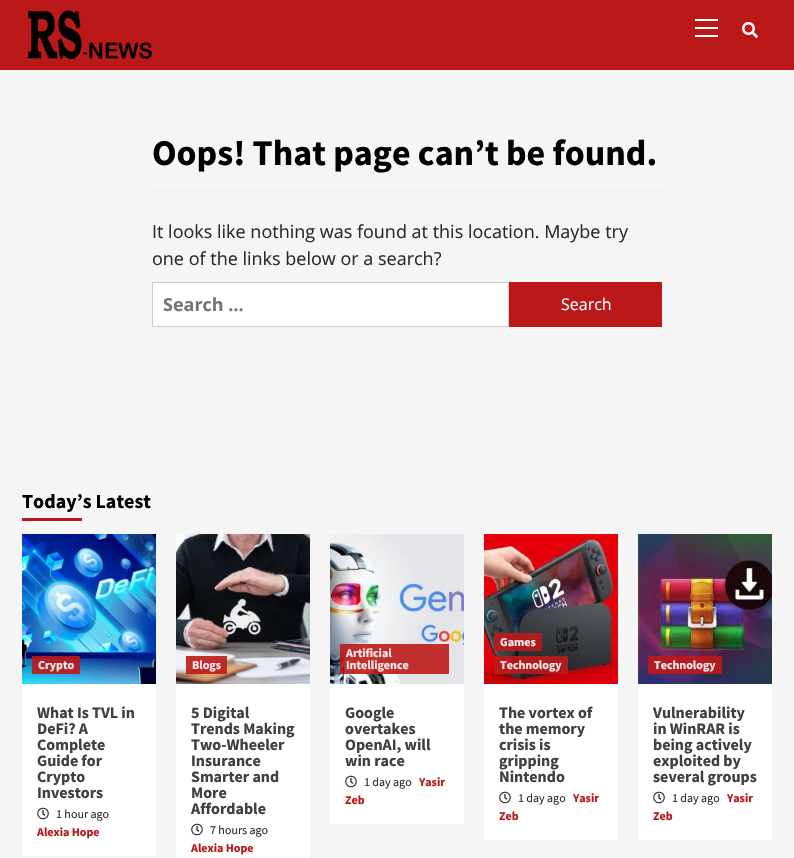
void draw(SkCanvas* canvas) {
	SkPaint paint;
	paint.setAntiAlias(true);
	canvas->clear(0xfff5f5f5);
	paint.setColor(0xffbb1919);
	canvas->drawRect(SkRect::MakeXYWH(0, 0, 794, 70), paint);
	canvas->drawImageRect(SkImages::DeferredFromEncodedData(SkData::MakeFromFileName("img1.png")), SkRect::MakeXYWH(28, 10, 124, 49), SkSamplingOptions());
	paint.setColor(0xffffffff);
	canvas->drawRect(SkRect::MakeXYWH(695, 27, 23, 2), paint);
	canvas->drawRect(SkRect::MakeXYWH(695, 19, 23, 2), paint);
	canvas->drawRect(SkRect::MakeXYWH(695, 35, 23, 2), paint);
	canvas->drawImageRect(SkImages::DeferredFromEncodedData(SkData::MakeFromFileName("img2.png")), SkRect::MakeXYWH(742, 22, 16, 16), SkSamplingOptions());
	paint.setColor(0xffeeeeee);
	canvas->drawRect(SkRect::MakeXYWH(152, 190, 511, 1), paint);
	SkFont f1(fontMgr->matchFamilyStyle("Source Sans Pro", SkFontStyle::Bold()), 36);
	f1.setSubpixel(true);
	paint.setColor(0xff000000);
	canvas->drawString("Oops! That page can’t be found.", 152, 165, f1, paint);
	SkFont f2(fontMgr->matchFamilyStyle("Open Sans", SkFontStyle::Normal()), 18);
	f2.setSubpixel(true);
	paint.setColor(0xff2a2a2a);
	canvas->drawString("It looks like nothing was found at this location. Maybe try", 152, 238, f2, paint);
	canvas->drawString("one of the links below or a search?", 152, 265, f2, paint);
	paint.setColor(0xffffffff);
	canvas->drawRect(SkRect::MakeXYWH(152.5, 282.5, 356, 44), paint);
	paint.setStroke(true);
	paint.setStrokeWidth(1);
	paint.setColor(0xffcccccc);
	canvas->drawRect(SkRect::MakeXYWH(152.5, 282.5, 356, 44), paint);
	SkFont f3(fontMgr->matchFamilyStyle("Open Sans", SkFontStyle::Bold()), 18);
	f3.setSubpixel(true);
	paint.setStroke(false);
	paint.setColor(0xff757575);
	canvas->drawString("Search …", 163, 311, f3, paint);
	paint.setColor(0xffbb1919);
	canvas->drawRect(SkRect::MakeXYWH(509, 282, 153, 45), paint);
	SkFont f4(fontMgr->matchFamilyStyle("Open Sans", SkFontStyle::Normal()), 16);
	f4.setSubpixel(true);
	paint.setColor(0xffffffff);
	canvas->drawString("Search", 561, 310, f4, paint);
	SkFont f5(fontMgr->matchFamilyStyle("Source Sans Pro", SkFontStyle::Bold()), 20);
	f5.setSubpixel(true);
	paint.setColor(0xff000000);
	canvas->drawString("Today’s Latest", 22, 508, f5, paint);
	paint.setColor(0xffbb1919);
	canvas->drawRect(SkRect::MakeXYWH(22, 518, 60, 3), paint);
	paint.setColor(0xffffffff);
	canvas->drawRect(SkRect::MakeXYWH(22, 684, 134, 172), paint);
	canvas->drawImageRect(SkImages::DeferredFromEncodedData(SkData::MakeFromFileName("img3.png")), SkRect::MakeXYWH(22, 534, 134, 150), SkSamplingOptions());
	paint.setColor(0xe6bb1919);
	canvas->drawRect(SkRect::MakeXYWH(32, 656, 48, 18), paint);
	SkFont f6(fontMgr->matchFamilyStyle("Source Sans Pro", SkFontStyle::Bold()), 12);
	f6.setSubpixel(true);
	paint.setColor(0xfff7e9ea);
	canvas->drawString("Crypto", 38, 669, f6, paint);
	SkFont f7(fontMgr->matchFamilyStyle("Source Sans Pro", SkFontStyle::Bold()), 16);
	f7.setSubpixel(true);
	paint.setColor(0xff404040);
	canvas->drawString("What Is TVL in", 37, 718, f7, paint);
	canvas->drawString("DeFi? A", 37, 734, f7, paint);
	canvas->drawString("Complete", 37, 750, f7, paint);
	canvas->drawString("Guide for", 37, 766, f7, paint);
	canvas->drawString("Crypto", 37, 782, f7, paint);
	canvas->drawString("Investors", 37, 798, f7, paint);
	canvas->drawImageRect(SkImages::DeferredFromEncodedData(SkData::MakeFromFileName("img4.png")), SkRect::MakeXYWH(37, 807, 12, 13), SkSamplingOptions());
	SkFont f8(fontMgr->matchFamilyStyle("Source Sans Pro", SkFontStyle::Normal()), 12);
	f8.setSubpixel(true);
	paint.setColor(0xff2a2a2a);
	canvas->drawString("1 hour ago", 56, 818, f8, paint);
	paint.setColor(0xffbb1919);
	canvas->drawString("Alexia Hope", 37, 836, f6, paint);
	paint.setColor(0xffffffff);
	canvas->drawRect(SkRect::MakeXYWH(176, 684, 134, 174), paint);
	canvas->drawImageRect(SkImages::DeferredFromEncodedData(SkData::MakeFromFileName("img5.png")), SkRect::MakeXYWH(176, 534, 134, 150), SkSamplingOptions());
	paint.setColor(0xe6bb1919);
	canvas->drawRect(SkRect::MakeXYWH(186, 656, 41, 18), paint);
	paint.setColor(0xfff7e9ea);
	canvas->drawString("Blogs", 192, 669, f6, paint);
	paint.setColor(0xff404040);
	canvas->drawString("5 Digital", 191, 718, f7, paint);
	canvas->drawString("Trends Making", 191, 734, f7, paint);
	canvas->drawString("Two-Wheeler", 191, 750, f7, paint);
	canvas->drawString("Insurance", 191, 766, f7, paint);
	canvas->drawString("Smarter and", 191, 782, f7, paint);
	canvas->drawString("More", 191, 798, f7, paint);
	canvas->drawString("Affordable", 191, 814, f7, paint);
	canvas->drawImageRect(SkImages::DeferredFromEncodedData(SkData::MakeFromFileName("img4.png")), SkRect::MakeXYWH(191, 823, 12, 13), SkSamplingOptions());
	paint.setColor(0xff2a2a2a);
	canvas->drawString("7 hours ago", 210, 834, f8, paint);
	paint.setColor(0xffbb1919);
	canvas->drawString("Alexia Hope", 191, 852, f6, paint);
	paint.setColor(0xffffffff);
	canvas->drawRect(SkRect::MakeXYWH(330, 684, 134, 140), paint);
	canvas->drawImageRect(SkImages::DeferredFromEncodedData(SkData::MakeFromFileName("img6.png")), SkRect::MakeXYWH(330, 534, 134, 150), SkSamplingOptions());
	paint.setColor(0xe6bb1919);
	canvas->drawRect(SkRect::MakeXYWH(340, 644, 109, 30), paint);
	paint.setColor(0xfff7e9ea);
	canvas->drawString("Artificial", 346, 657, f6, paint);
	canvas->drawString("Intelligence", 346, 669, f6, paint);
	paint.setColor(0xff404040);
	canvas->drawString("Google", 345, 718, f7, paint);
	canvas->drawString("overtakes", 345, 734, f7, paint);
	canvas->drawString("OpenAI, will", 345, 750, f7, paint);
	canvas->drawString("win race", 345, 766, f7, paint);
	canvas->drawImageRect(SkImages::DeferredFromEncodedData(SkData::MakeFromFileName("img4.png")), SkRect::MakeXYWH(345, 775, 12, 13), SkSamplingOptions());
	paint.setColor(0xff2a2a2a);
	canvas->drawString("1 day ago", 364, 786, f8, paint);
	paint.setColor(0xffbb1919);
	canvas->drawString("Yasir", 419, 786, f6, paint);
	canvas->drawString("Zeb", 345, 804, f6, paint);
	paint.setColor(0xffffffff);
	canvas->drawRect(SkRect::MakeXYWH(484, 684, 134, 156), paint);
	canvas->drawImageRect(SkImages::DeferredFromEncodedData(SkData::MakeFromFileName("img7.png")), SkRect::MakeXYWH(484, 534, 134, 150), SkSamplingOptions());
	paint.setColor(0xe6bb1919);
	canvas->drawRect(SkRect::MakeXYWH(494, 633, 48, 18), paint);
	paint.setColor(0xfff7e9ea);
	canvas->drawString("Games", 500, 646, f6, paint);
	paint.setColor(0xe6bb1919);
	canvas->drawRect(SkRect::MakeXYWH(494, 656, 74, 18), paint);
	paint.setColor(0xfff7e9ea);
	canvas->drawString("Technology", 500, 669, f6, paint);
	paint.setColor(0xff404040);
	canvas->drawString("The vortex of", 499, 718, f7, paint);
	canvas->drawString("the memory", 499, 734, f7, paint);
	canvas->drawString("crisis is", 499, 750, f7, paint);
	canvas->drawString("gripping", 499, 766, f7, paint);
	canvas->drawString("Nintendo", 499, 782, f7, paint);
	canvas->drawImageRect(SkImages::DeferredFromEncodedData(SkData::MakeFromFileName("img4.png")), SkRect::MakeXYWH(499, 791, 12, 13), SkSamplingOptions());
	paint.setColor(0xff2a2a2a);
	canvas->drawString("1 day ago", 518, 802, f8, paint);
	paint.setColor(0xffbb1919);
	canvas->drawString("Yasir", 573, 802, f6, paint);
	canvas->drawString("Zeb", 499, 820, f6, paint);
	paint.setColor(0xffffffff);
	canvas->drawRect(SkRect::MakeXYWH(638, 684, 134, 156), paint);
	canvas->drawImageRect(SkImages::DeferredFromEncodedData(SkData::MakeFromFileName("img8.png")), SkRect::MakeXYWH(638, 534, 134, 150), SkSamplingOptions());
	paint.setColor(0xe6bb1919);
	canvas->drawRect(SkRect::MakeXYWH(648, 656, 74, 18), paint);
	paint.setColor(0xfff7e9ea);
	canvas->drawString("Technology", 654, 669, f6, paint);
	paint.setColor(0xff404040);
	canvas->drawString("Vulnerability", 653, 718, f7, paint);
	canvas->drawString("in WinRAR is", 653, 734, f7, paint);
	canvas->drawString("being actively", 653, 750, f7, paint);
	canvas->drawString("exploited by", 653, 766, f7, paint);
	canvas->drawString("several groups", 653, 782, f7, paint);
	canvas->drawImageRect(SkImages::DeferredFromEncodedData(SkData::MakeFromFileName("img4.png")), SkRect::MakeXYWH(653, 791, 12, 13), SkSamplingOptions());
	paint.setColor(0xff2a2a2a);
	canvas->drawString("1 day ago", 672, 802, f8, paint);
	paint.setColor(0xffbb1919);
	canvas->drawString("Yasir", 727, 802, f6, paint);
	canvas->drawString("Zeb", 653, 820, f6, paint);
}
